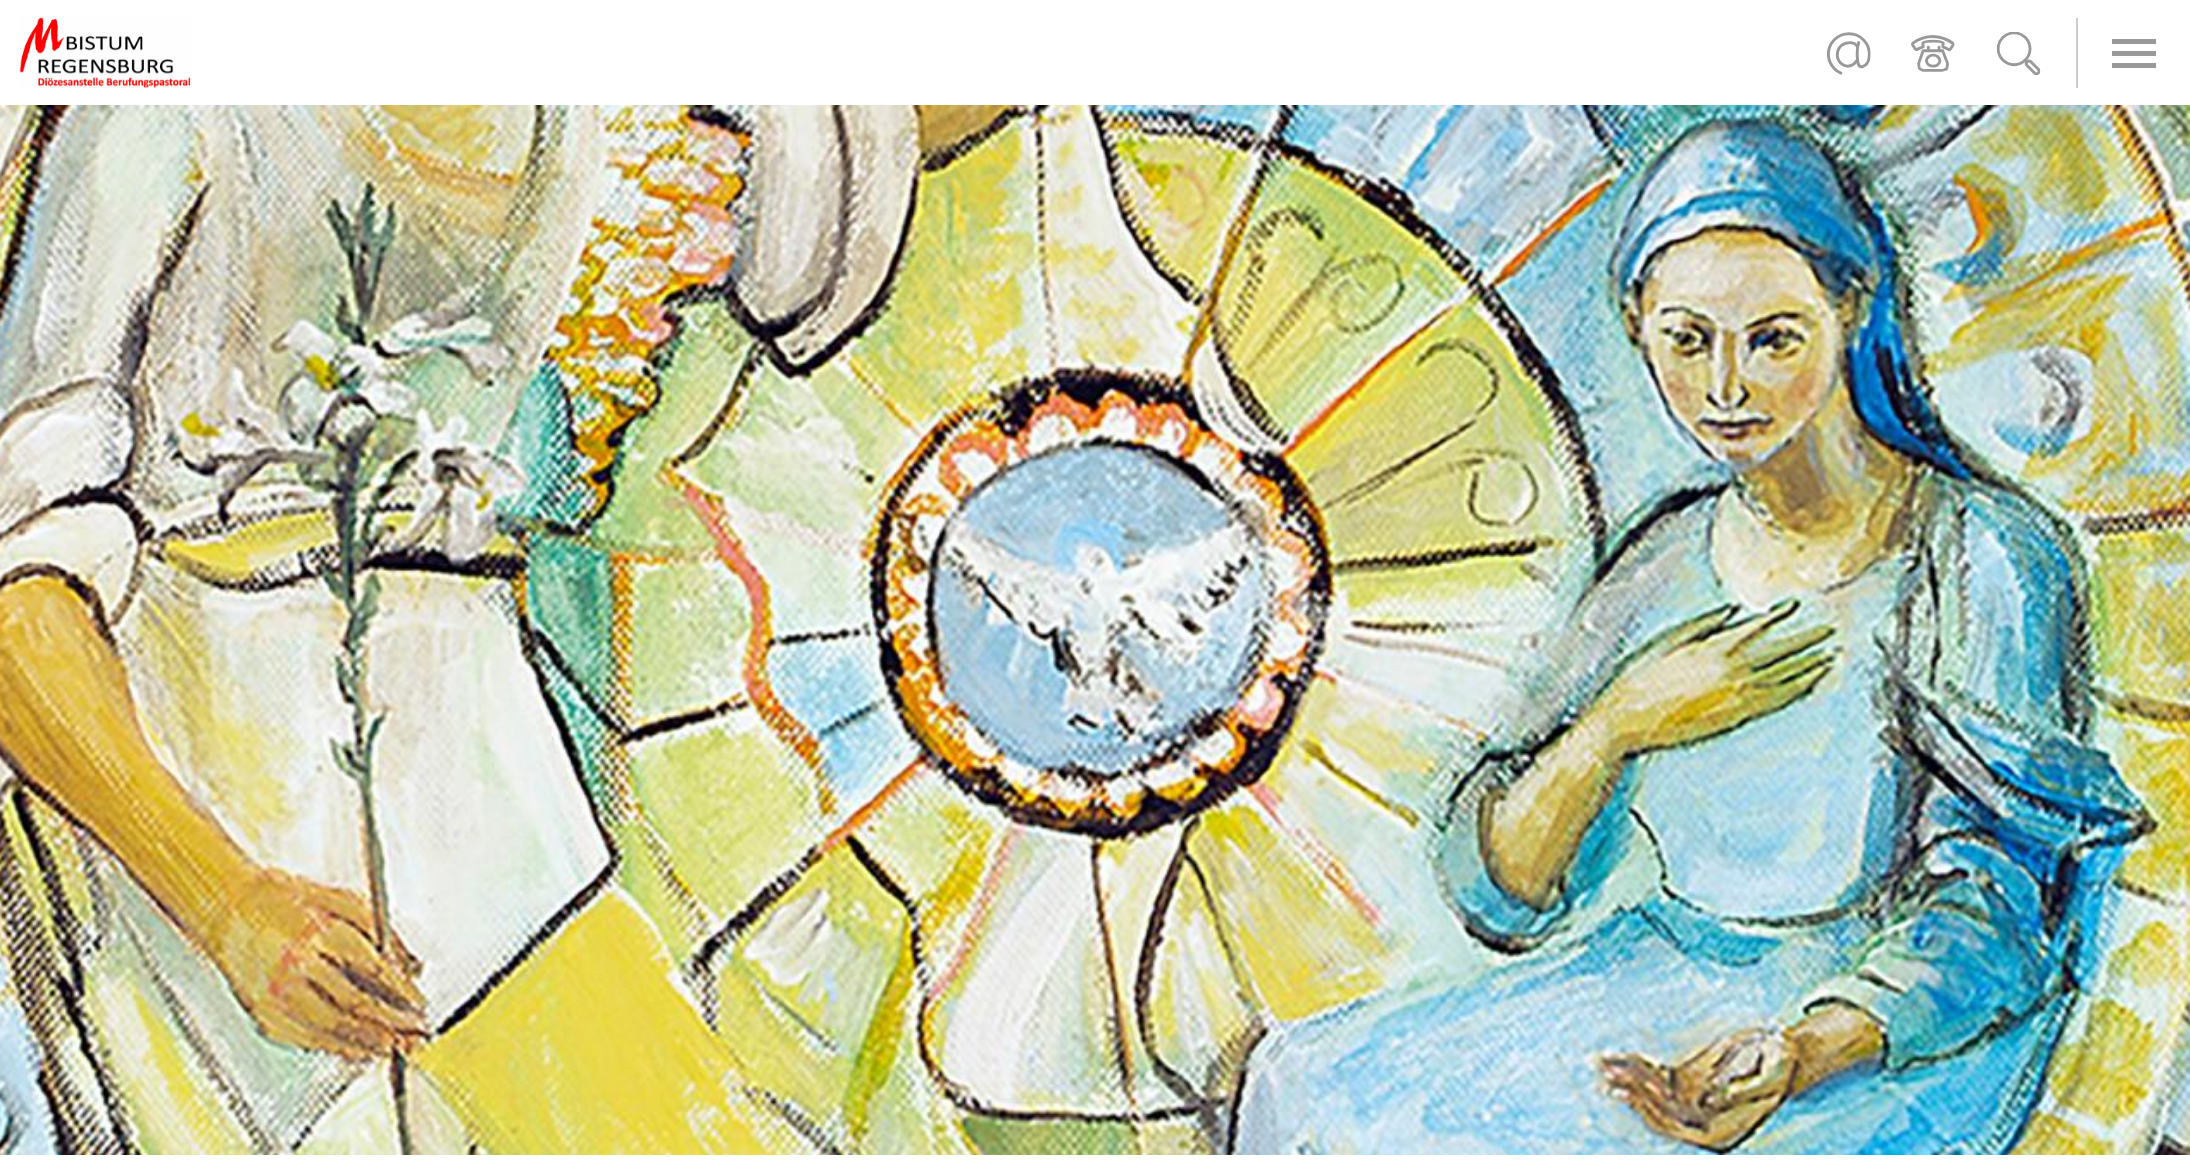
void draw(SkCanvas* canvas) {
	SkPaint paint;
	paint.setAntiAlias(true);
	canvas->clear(0xffffffff);
	canvas->drawImageRect(SkImages::DeferredFromEncodedData(SkData::MakeFromFileName("img1.png")), SkRect::MakeXYWH(19, 17, 172, 71), SkSamplingOptions());
	paint.setColor(0xffcccccc);
	canvas->drawRect(SkRect::MakeXYWH(2076, 18, 2, 70), paint);
	canvas->drawImageRect(SkImages::DeferredFromEncodedData(SkData::MakeFromFileName("img2.png")), SkRect::MakeXYWH(1827, 32, 44, 43), SkSamplingOptions());
	canvas->drawImageRect(SkImages::DeferredFromEncodedData(SkData::MakeFromFileName("img3.png")), SkRect::MakeXYWH(1911, 35, 44, 37), SkSamplingOptions());
	canvas->drawImageRect(SkImages::DeferredFromEncodedData(SkData::MakeFromFileName("img4.png")), SkRect::MakeXYWH(1997, 32, 44, 43), SkSamplingOptions());
	paint.setColor(0xff999999);
	canvas->drawRect(SkRect::MakeXYWH(2112, 39, 44, 5), paint);
	canvas->drawRect(SkRect::MakeXYWH(2112, 51, 44, 5), paint);
	canvas->drawRect(SkRect::MakeXYWH(2112, 63, 44, 5), paint);
	canvas->drawImageRect(SkImages::DeferredFromEncodedData(SkData::MakeFromFileName("img5.png")), SkRect::MakeXYWH(0, 105, 2190, 1050), SkSamplingOptions());
}
